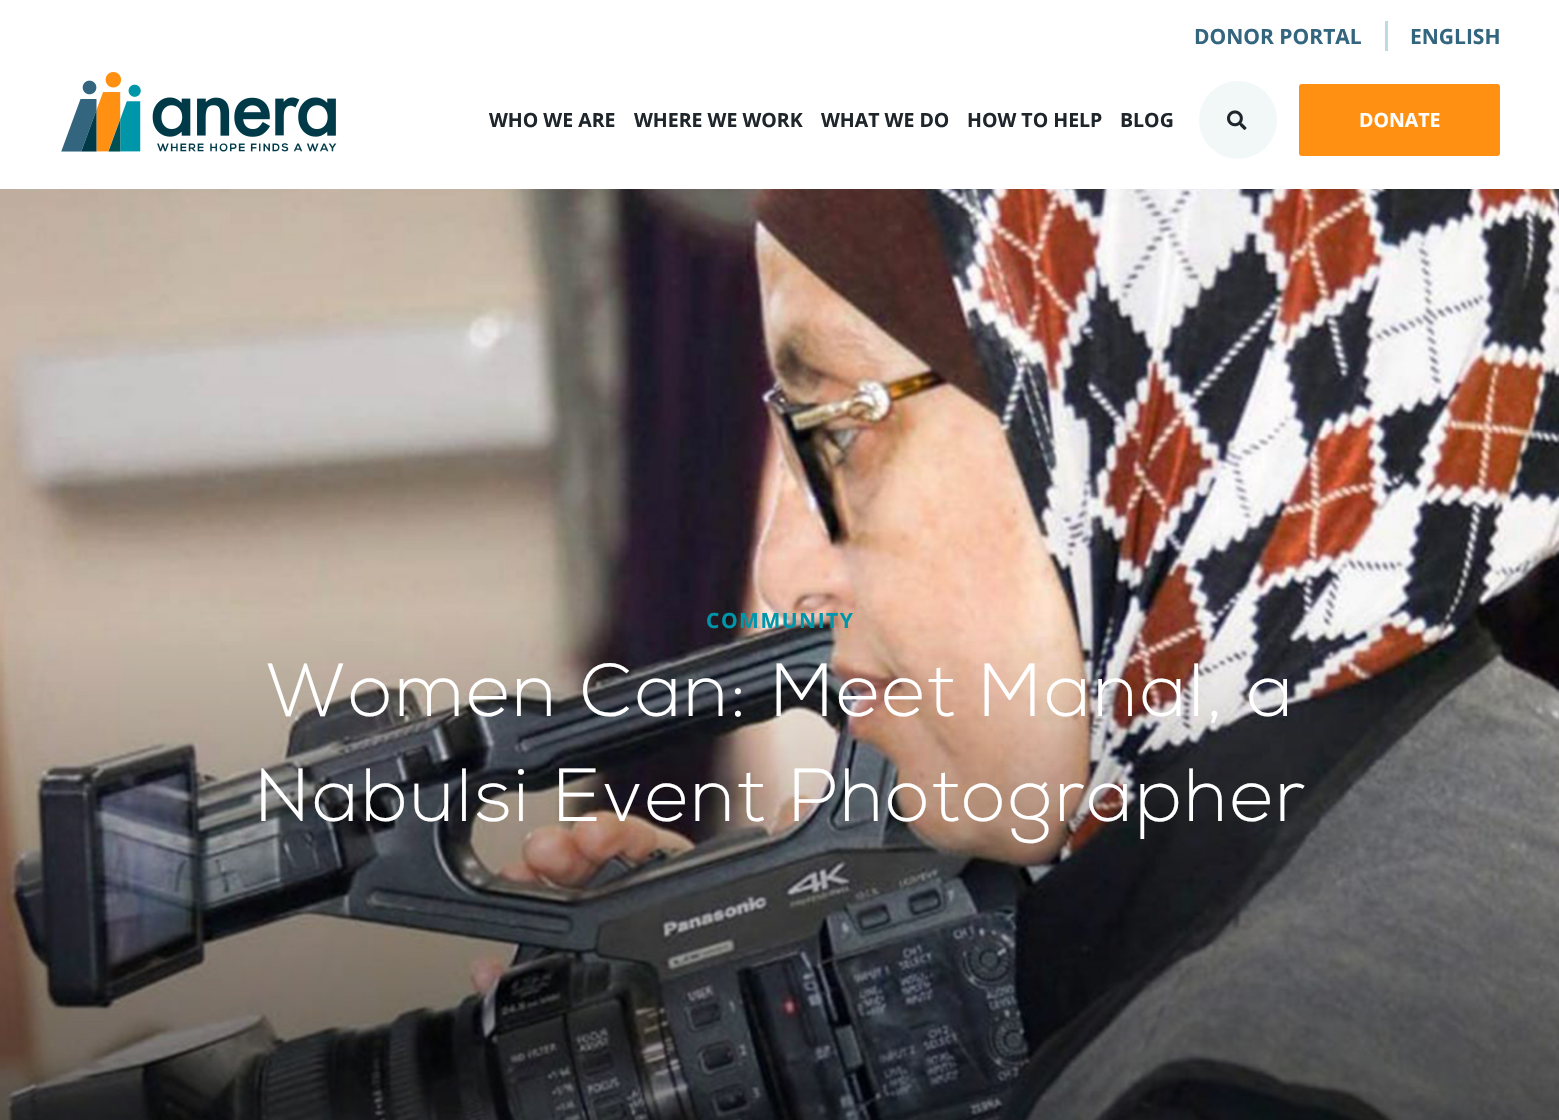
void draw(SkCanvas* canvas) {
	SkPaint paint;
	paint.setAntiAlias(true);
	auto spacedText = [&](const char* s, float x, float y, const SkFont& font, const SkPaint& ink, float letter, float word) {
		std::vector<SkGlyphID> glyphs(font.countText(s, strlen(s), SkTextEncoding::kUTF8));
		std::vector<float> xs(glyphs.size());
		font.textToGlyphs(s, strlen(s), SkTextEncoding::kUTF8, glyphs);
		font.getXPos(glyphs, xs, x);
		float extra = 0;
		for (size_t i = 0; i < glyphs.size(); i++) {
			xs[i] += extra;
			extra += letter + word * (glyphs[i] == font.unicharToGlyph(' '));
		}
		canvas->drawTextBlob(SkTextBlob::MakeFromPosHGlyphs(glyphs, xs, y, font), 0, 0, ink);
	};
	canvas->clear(0xffffffff);
	paint.setColor(0xffbcdbe4);
	canvas->drawRect(SkRect::MakeXYWH(1385, 21, 3, 30), paint);
	SkFont f1(fontMgr->matchFamilyStyle("Open Sans", SkFontStyle::Bold()), 21);
	f1.setSubpixel(true);
	paint.setColor(0xff34657f);
	canvas->drawString("DONOR PORTAL", 1194, 44, f1, paint);
	canvas->drawString("ENGLISH", 1410, 44, f1, paint);
	canvas->drawImageRect(SkImages::DeferredFromEncodedData(SkData::MakeFromFileName("img1.png")), SkRect::MakeXYWH(61, 72, 276, 80), SkSamplingOptions());
	SkFont f2(fontMgr->matchFamilyStyle("Open Sans", SkFontStyle::Bold()), 19.5);
	f2.setSubpixel(true);
	paint.setColor(0xff1e252b);
	canvas->drawString("WHO WE ARE", 489, 127, f2, paint);
	canvas->drawString("WHERE WE WORK", 634, 127, f2, paint);
	canvas->drawString("WHAT WE DO", 821, 127, f2, paint);
	canvas->drawString("HOW TO HELP", 967, 127, f2, paint);
	canvas->drawString("BLOG", 1120, 127, f2, paint);
	paint.setColor(0xfff2f8f8);
	canvas->drawCircle(1238, 120, 39, paint);
	canvas->drawImageRect(SkImages::DeferredFromEncodedData(SkData::MakeFromFileName("img2.png")), SkRect::MakeXYWH(1227, 110, 20, 20), SkSamplingOptions());
	paint.setColor(0xffff9012);
	canvas->drawRoundRect(SkRect::MakeXYWH(1299, 84, 201, 72), 3, 3, paint);
	paint.setColor(0xffffffff);
	canvas->drawString("DONATE", 1359, 127, f2, paint);
	canvas->drawImageRect(SkImages::DeferredFromEncodedData(SkData::MakeFromFileName("img3.png")), SkRect::MakeXYWH(0, 189, 1559, 931), SkSamplingOptions());
	paint.setColor(0xff0096aa);
	spacedText("COMMUNITY", 706, 628, f1, paint, 1.5, 0);
	SkFont f3(fontMgr->matchFamilyStyle("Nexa", SkFontStyle(300, SkFontStyle::kNormal_Width, SkFontStyle::kUpright_Slant)), 75);
	f3.setSubpixel(true);
	paint.setColor(0xffffffff);
	spacedText("Women Can: Meet Manal, a", 265, 716, f3, paint, 1.5, 0);
	spacedText("Nabulsi Event Photographer", 254, 821, f3, paint, 1.5, 0);
}
